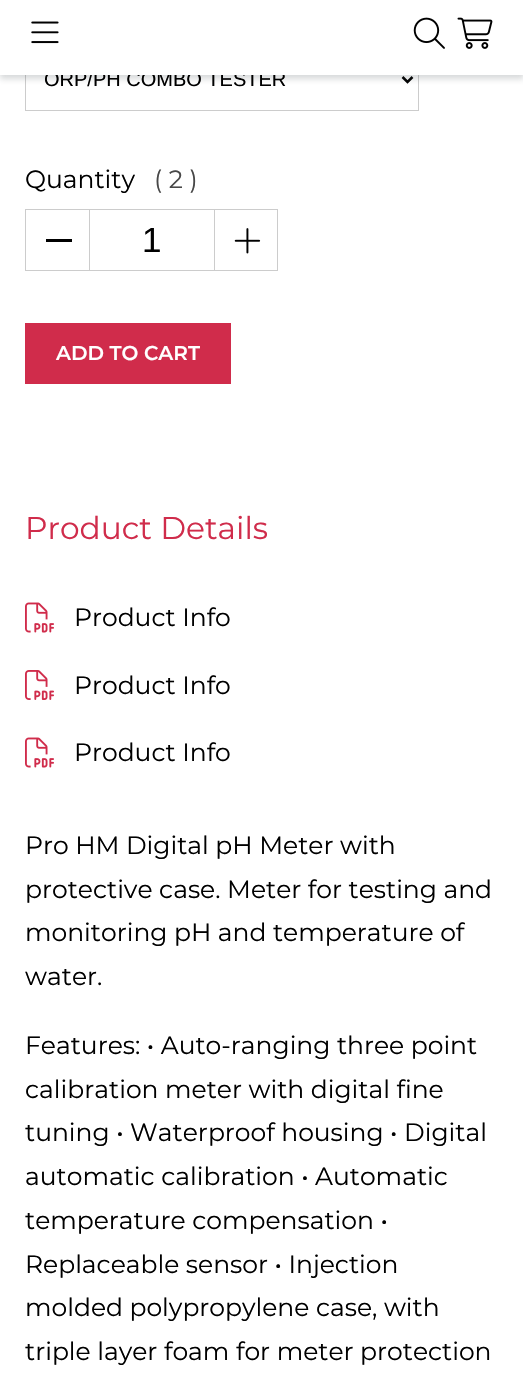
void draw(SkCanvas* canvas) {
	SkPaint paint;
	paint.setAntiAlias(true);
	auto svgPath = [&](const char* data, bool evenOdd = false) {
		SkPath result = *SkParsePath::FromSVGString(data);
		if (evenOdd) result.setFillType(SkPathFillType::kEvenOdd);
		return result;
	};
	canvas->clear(0xffffffff);
	paint.setStroke(true);
	paint.setStrokeWidth(1);
	paint.setColor(0xffcccccc);
	canvas->drawRect(SkRect::MakeXYWH(25.5, 48.5, 393, 62), paint);
	paint.setStrokeWidth(2.5);
	paint.setColor(0xff000000);
	canvas->drawPath(svgPath("M402.5 77L407.5 82L412.5 77"), paint);
	paint.setStroke(false);
	paint.setColor(0x33393f48);
	paint.setMaskFilter(SkMaskFilter::MakeBlur(kNormal_SkBlurStyle, 3));
	canvas->drawRect(SkRect::MakeXYWH(0, 4, 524, 75), paint);
	paint.setMaskFilter(nullptr);
	SkFont f1(fontMgr->matchFamilyStyle("Liberation Sans", SkFontStyle::Normal()), 20);
	f1.setSubpixel(true);
	paint.setColor(0xff000000);
	canvas->drawString("ORP/PH COMBO TESTER", 44, 86, f1, paint);
	paint.setColor(0xffffffff);
	canvas->drawRect(SkRect::MakeXYWH(0, 0, 523, 75), paint);
	canvas->drawImageRect(SkImages::DeferredFromEncodedData(SkData::MakeFromFileName("img1.png")), SkRect::MakeXYWH(31, 21, 28, 23), SkSamplingOptions());
	canvas->drawImageRect(SkImages::DeferredFromEncodedData(SkData::MakeFromFileName("img2.png")), SkRect::MakeXYWH(413, 17, 32, 32), SkSamplingOptions());
	canvas->drawImageRect(SkImages::DeferredFromEncodedData(SkData::MakeFromFileName("img3.png")), SkRect::MakeXYWH(457, 17, 36, 32), SkSamplingOptions());
	SkFont f2(fontMgr->matchFamilyStyle("Montserrat", SkFontStyle::Normal()), 25);
	f2.setSubpixel(true);
	paint.setColor(0xff000000);
	canvas->drawString("Quantity", 25, 188, f2, paint);
	paint.setColor(0xff484848);
	canvas->drawString("( 2 )", 154, 188, f2, paint);
	paint.setStroke(true);
	paint.setStrokeWidth(1);
	paint.setColor(0xffcccccc);
	canvas->drawRect(SkRect::MakeXYWH(25.5, 209.5, 252, 61), paint);
	paint.setStroke(false);
	canvas->drawRect(SkRect::MakeXYWH(89, 210, 1, 60), paint);
	paint.setColor(0xff000000);
	canvas->drawRect(SkRect::MakeXYWH(46, 239, 26, 3), paint);
	SkFont f3(fontMgr->matchFamilyStyle("Liberation Sans", SkFontStyle::Normal()), 35);
	f3.setSubpixel(true);
	canvas->drawString("1", 142, 252, f3, paint);
	paint.setColor(0xffcccccc);
	canvas->drawRect(SkRect::MakeXYWH(214, 210, 1, 60), paint);
	canvas->drawImageRect(SkImages::DeferredFromEncodedData(SkData::MakeFromFileName("img4.png")), SkRect::MakeXYWH(234, 228, 27, 26), SkSamplingOptions());
	paint.setColor(0xffd02c4b);
	canvas->drawRect(SkRect::MakeXYWH(25, 323, 206, 61), paint);
	SkFont f4(fontMgr->matchFamilyStyle("Montserrat", SkFontStyle(600, SkFontStyle::kNormal_Width, SkFontStyle::kUpright_Slant)), 20);
	f4.setSubpixel(true);
	paint.setColor(0xffffffff);
	canvas->drawString("ADD TO CART", 56, 360, f4, paint);
	SkFont f5(fontMgr->matchFamilyStyle("Montserrat", SkFontStyle::Normal()), 31.25);
	f5.setSubpixel(true);
	paint.setColor(0xffd02c4b);
	canvas->drawString("Product Details", 25, 539, f5, paint);
	canvas->drawImageRect(SkImages::DeferredFromEncodedData(SkData::MakeFromFileName("img5.png")), SkRect::MakeXYWH(25, 602, 29, 31), SkSamplingOptions());
	paint.setColor(0xff000000);
	canvas->drawString("Product Info", 74, 626, f2, paint);
	canvas->drawImageRect(SkImages::DeferredFromEncodedData(SkData::MakeFromFileName("img6.png")), SkRect::MakeXYWH(25, 670, 29, 30), SkSamplingOptions());
	canvas->drawString("Product Info", 74, 694, f2, paint);
	canvas->drawImageRect(SkImages::DeferredFromEncodedData(SkData::MakeFromFileName("img5.png")), SkRect::MakeXYWH(25, 737, 29, 31), SkSamplingOptions());
	canvas->drawString("Product Info", 74, 761, f2, paint);
	canvas->drawString("Pro HM Digital pH Meter with", 25, 854, f2, paint);
	canvas->drawString("protective case. Meter for testing and", 25, 898, f2, paint);
	canvas->drawString("monitoring pH and temperature of", 25, 941, f2, paint);
	canvas->drawString("water.", 25, 985, f2, paint);
	canvas->drawString("Features: • Auto-ranging three point", 25, 1054, f2, paint);
	canvas->drawString("calibration meter with digital fine", 25, 1098, f2, paint);
	canvas->drawString("tuning • Waterproof housing • Digital", 25, 1141, f2, paint);
	canvas->drawString("automatic calibration • Automatic", 25, 1185, f2, paint);
	canvas->drawString("temperature compensation •", 25, 1229, f2, paint);
	canvas->drawString("Replaceable sensor • Injection", 25, 1273, f2, paint);
	canvas->drawString("molded polypropylene case, with", 25, 1316, f2, paint);
	canvas->drawString("triple layer foam for meter protection", 25, 1360, f2, paint);
}
